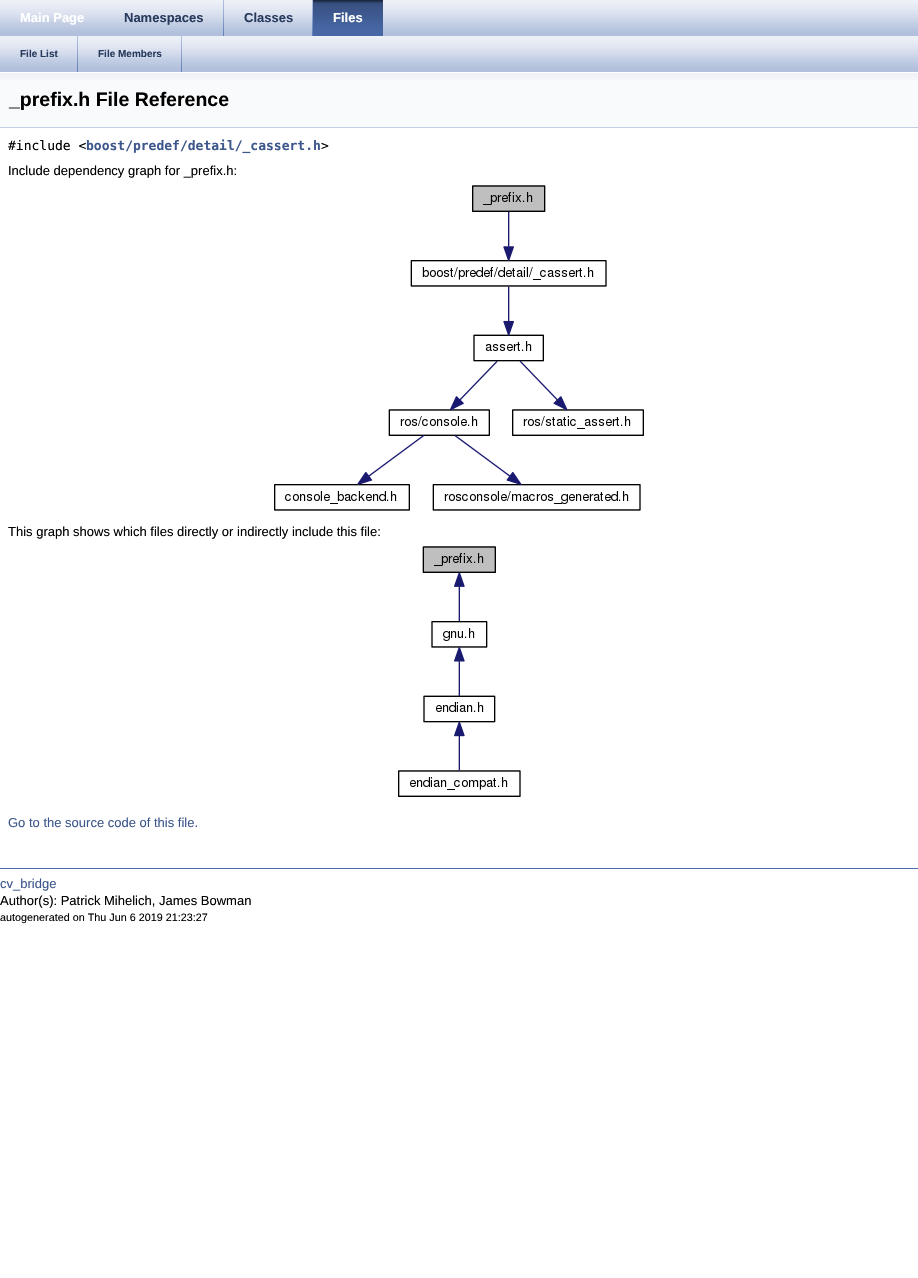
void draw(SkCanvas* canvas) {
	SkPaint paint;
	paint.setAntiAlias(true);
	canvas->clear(0xffffffff);
	canvas->drawImageRect(SkImages::DeferredFromEncodedData(SkData::MakeFromFileName("img1.png")), SkRect::MakeXYWH(0, 0, 918, 36), SkSamplingOptions());
	SkFont f1(fontMgr->matchFamilyStyle("Liberation Sans", SkFontStyle::Bold()), 13);
	f1.setSubpixel(true);
	paint.setColor(0xffffffff);
	canvas->drawString("Main Page", 20, 22, f1, paint);
	canvas->drawImageRect(SkImages::DeferredFromEncodedData(SkData::MakeFromFileName("img2.png")), SkRect::MakeXYWH(223, 0, 1, 36), SkSamplingOptions());
	paint.setColor(0xff283a5d);
	canvas->drawString("Namespaces", 124, 22, f1, paint);
	canvas->drawImageRect(SkImages::DeferredFromEncodedData(SkData::MakeFromFileName("img2.png")), SkRect::MakeXYWH(312, 0, 1, 36), SkSamplingOptions());
	canvas->drawString("Classes", 244, 22, f1, paint);
	canvas->drawImageRect(SkImages::DeferredFromEncodedData(SkData::MakeFromFileName("img3.png")), SkRect::MakeXYWH(313, 0, 70, 36), SkSamplingOptions());
	paint.setColor(0xffffffff);
	canvas->drawString("Files", 333, 22, f1, paint);
	canvas->drawImageRect(SkImages::DeferredFromEncodedData(SkData::MakeFromFileName("img1.png")), SkRect::MakeXYWH(0, 36, 918, 36), SkSamplingOptions());
	canvas->drawImageRect(SkImages::DeferredFromEncodedData(SkData::MakeFromFileName("img2.png")), SkRect::MakeXYWH(77, 36, 1, 36), SkSamplingOptions());
	SkFont f2(fontMgr->matchFamilyStyle("Liberation Sans", SkFontStyle::Bold()), 10);
	f2.setSubpixel(true);
	paint.setColor(0xff283a5d);
	canvas->drawString("File List", 20, 57, f2, paint);
	canvas->drawImageRect(SkImages::DeferredFromEncodedData(SkData::MakeFromFileName("img2.png")), SkRect::MakeXYWH(181, 36, 1, 36), SkSamplingOptions());
	canvas->drawString("File Members", 98, 57, f2, paint);
	paint.setColor(0xfff9fafc);
	canvas->drawRect(SkRect::MakeXYWH(0, 80, 918, 47), paint);
	canvas->drawImageRect(SkImages::DeferredFromEncodedData(SkData::MakeFromFileName("img4.png")), SkRect::MakeXYWH(0, 72, 918, 8), SkSamplingOptions());
	paint.setColor(0xffc4cfe5);
	canvas->drawRect(SkRect::MakeXYWH(0, 127, 918, 1), paint);
	SkFont f3(fontMgr->matchFamilyStyle("Liberation Sans", SkFontStyle::Bold()), 19.5);
	f3.setSubpixel(true);
	paint.setColor(0xff000000);
	canvas->drawString("_prefix.h File Reference", 9, 106, f3, paint);
	SkFont f4(fontMgr->matchFamilyStyle("DejaVu Sans Mono", SkFontStyle::Normal()), 13);
	f4.setSubpixel(true);
	canvas->drawString("#include <", 8, 150, f4, paint);
	SkFont f5(fontMgr->matchFamilyStyle("DejaVu Sans Mono", SkFontStyle::Bold()), 13);
	f5.setSubpixel(true);
	paint.setColor(0xff3d578c);
	canvas->drawString("boost/predef/detail/_cassert.h", 86, 150, f5, paint);
	paint.setColor(0xff000000);
	canvas->drawString(">", 321, 150, f4, paint);
	SkFont f6(fontMgr->matchFamilyStyle("Liberation Sans", SkFontStyle::Normal()), 13);
	f6.setSubpixel(true);
	canvas->drawString("Include dependency graph for _prefix.h:", 8, 175, f6, paint);
	canvas->drawImageRect(SkImages::DeferredFromEncodedData(SkData::MakeFromFileName("img5.png")), SkRect::MakeXYWH(274, 185, 370, 326), SkSamplingOptions());
	canvas->drawString("This graph shows which files directly or indirectly include this file:", 8, 536, f6, paint);
	canvas->drawImageRect(SkImages::DeferredFromEncodedData(SkData::MakeFromFileName("img6.png")), SkRect::MakeXYWH(398, 546, 123, 251), SkSamplingOptions());
	paint.setColor(0xff3d578c);
	canvas->drawString("Go to the source code of this file.", 8, 827, f6, paint);
	paint.setColor(0xff4a6aaa);
	canvas->drawRect(SkRect::MakeXYWH(0, 868, 918, 1), paint);
	paint.setColor(0xff3d578c);
	canvas->drawString("cv_bridge", 0, 888, f6, paint);
	paint.setColor(0xff000000);
	canvas->drawString("Author(s): Patrick Mihelich, James Bowman", 0, 905, f6, paint);
	SkFont f7(fontMgr->matchFamilyStyle("Liberation Sans", SkFontStyle::Normal()), 10.8);
	f7.setSubpixel(true);
	canvas->drawString("autogenerated on Thu Jun 6 2019 21:23:27", 0, 921, f7, paint);
}
